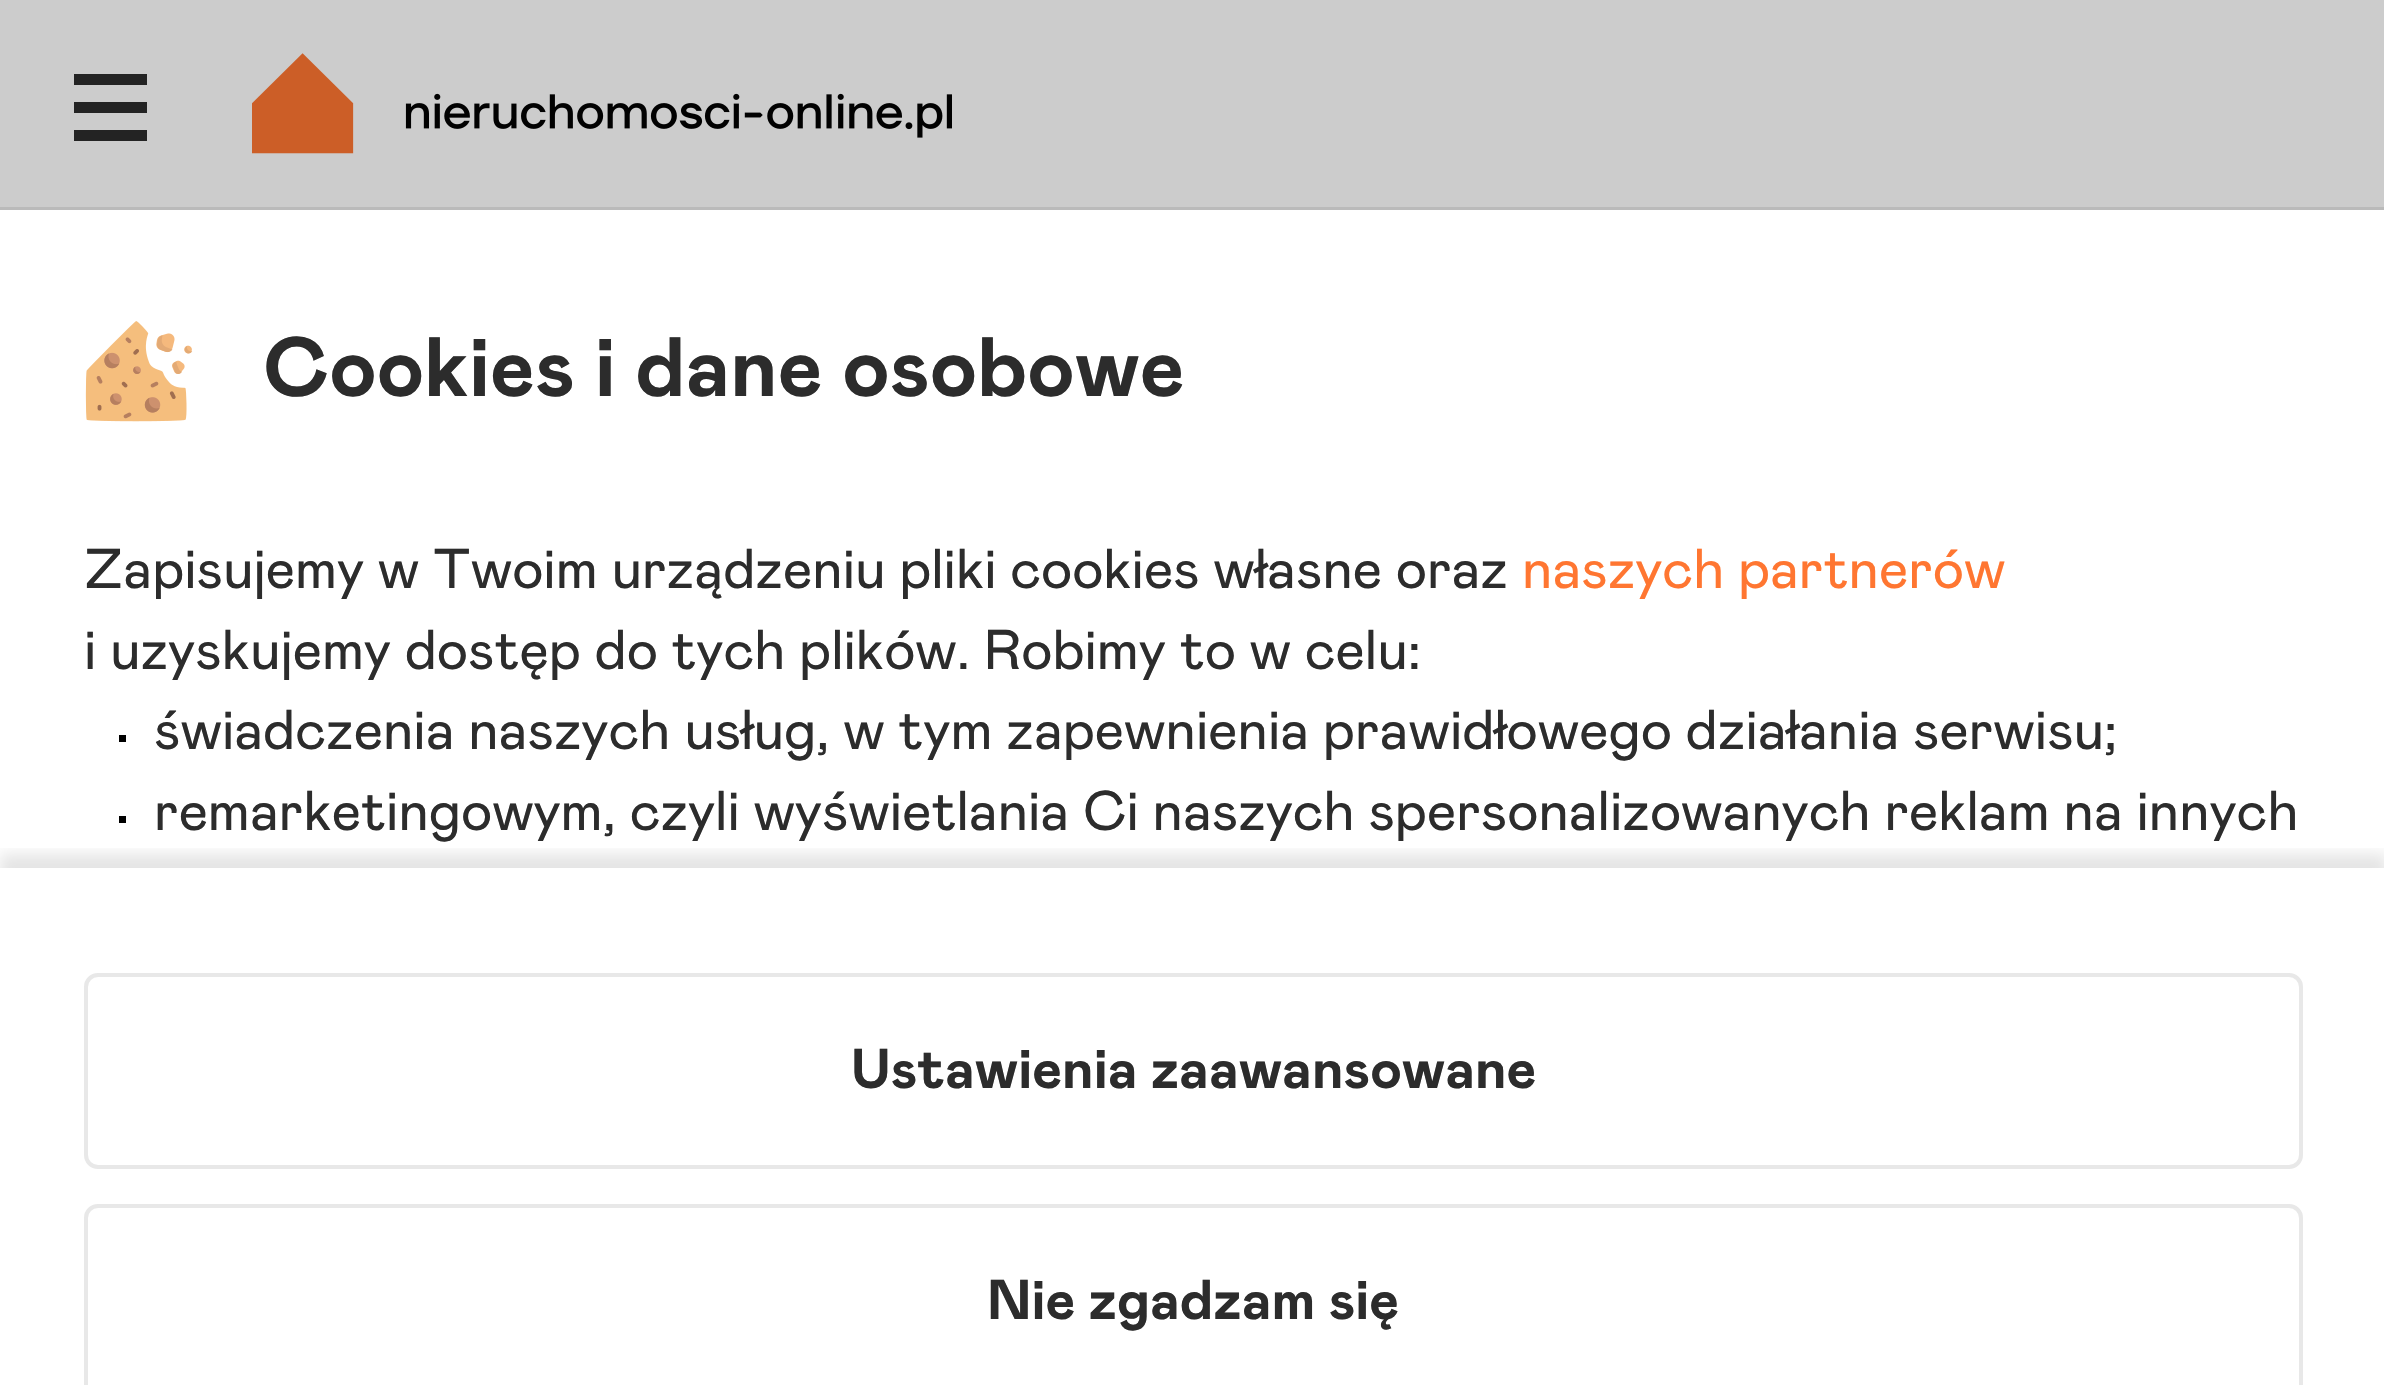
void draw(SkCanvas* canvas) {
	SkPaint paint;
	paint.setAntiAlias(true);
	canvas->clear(0xffcccccc);
	paint.setColor(0xffbababa);
	canvas->drawRect(SkRect::MakeXYWH(0, 207, 2384, 3), paint);
	paint.setColor(0xff232323);
	canvas->drawRect(SkRect::MakeXYWH(74, 74, 73, 11), paint);
	canvas->drawRect(SkRect::MakeXYWH(74, 102, 73, 11), paint);
	canvas->drawRect(SkRect::MakeXYWH(74, 130, 73, 11), paint);
	canvas->drawImageRect(SkImages::DeferredFromEncodedData(SkData::MakeFromFileName("img1.png")), SkRect::MakeXYWH(252, 53, 700, 101), SkSamplingOptions());
	paint.setColor(0xffffffff);
	canvas->drawRect(SkRect::MakeXYWH(0, 210, 2384, 1175), paint);
	canvas->drawImageRect(SkImages::DeferredFromEncodedData(SkData::MakeFromFileName("img2.png")), SkRect::MakeXYWH(85, 321, 108, 101), SkSamplingOptions());
	SkFont f1(fontMgr->matchFamilyStyle("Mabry", SkFontStyle::Bold()), 84);
	f1.setSubpixel(true);
	paint.setColor(0xff2c2c2c);
	canvas->drawString("Cookies i dane osobowe", 263, 396, f1, paint);
	SkFont f2(fontMgr->matchFamilyStyle("Mabry", SkFontStyle::Normal()), 56);
	f2.setSubpixel(true);
	canvas->drawString("Zapisujemy w Twoim urządzeniu pliki cookies własne oraz", 84, 588, f2, paint);
	paint.setColor(0xffff7631);
	canvas->drawString("naszych partnerów", 1522, 588, f2, paint);
	paint.setColor(0xff2c2c2c);
	canvas->drawString("i uzyskujemy dostęp do tych plików. Robimy to w celu:", 84, 669, f2, paint);
	paint.setColor(0xff000000);
	canvas->drawRect(SkRect::MakeXYWH(119, 735, 7, 7), paint);
	paint.setColor(0xff2c2c2c);
	canvas->drawString("świadczenia naszych usług, w tym zapewnienia prawidłowego działania serwisu;", 154, 749, f2, paint);
	paint.setColor(0xff000000);
	canvas->drawRect(SkRect::MakeXYWH(119, 816, 7, 7), paint);
	canvas->save();
	canvas->clipRect(SkRect::MakeXYWH(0, 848, 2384, 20));
	paint.setColor(0x1a000000);
	paint.setMaskFilter(SkMaskFilter::MakeBlur(kNormal_SkBlurStyle, 7));
	canvas->drawRect(SkRect::MakeXYWH(0, 854, 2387, 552), paint);
	paint.setMaskFilter(nullptr);
	canvas->restore();
	paint.setColor(0xff2c2c2c);
	canvas->drawString("remarketingowym, czyli wyświetlania Ci naszych spersonalizowanych reklam na innych", 154, 830, f2, paint);
	paint.setStroke(true);
	paint.setStrokeWidth(4);
	paint.setColor(0xffe8e8e8);
	canvas->drawRoundRect(SkRect::MakeXYWH(86, 975, 2215, 192), 12, 12, paint);
	SkFont f3(fontMgr->matchFamilyStyle("Mabry", SkFontStyle::Bold()), 56);
	f3.setSubpixel(true);
	paint.setStroke(false);
	paint.setColor(0xff2c2c2c);
	canvas->drawString("Ustawienia zaawansowane", 851, 1088, f3, paint);
	paint.setStroke(true);
	paint.setColor(0xffe8e8e8);
	canvas->drawRoundRect(SkRect::MakeXYWH(86, 1206, 2215, 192), 12, 12, paint);
	paint.setStroke(false);
	paint.setColor(0xff2c2c2c);
	canvas->drawString("Nie zgadzam się", 987, 1319, f3, paint);
}
